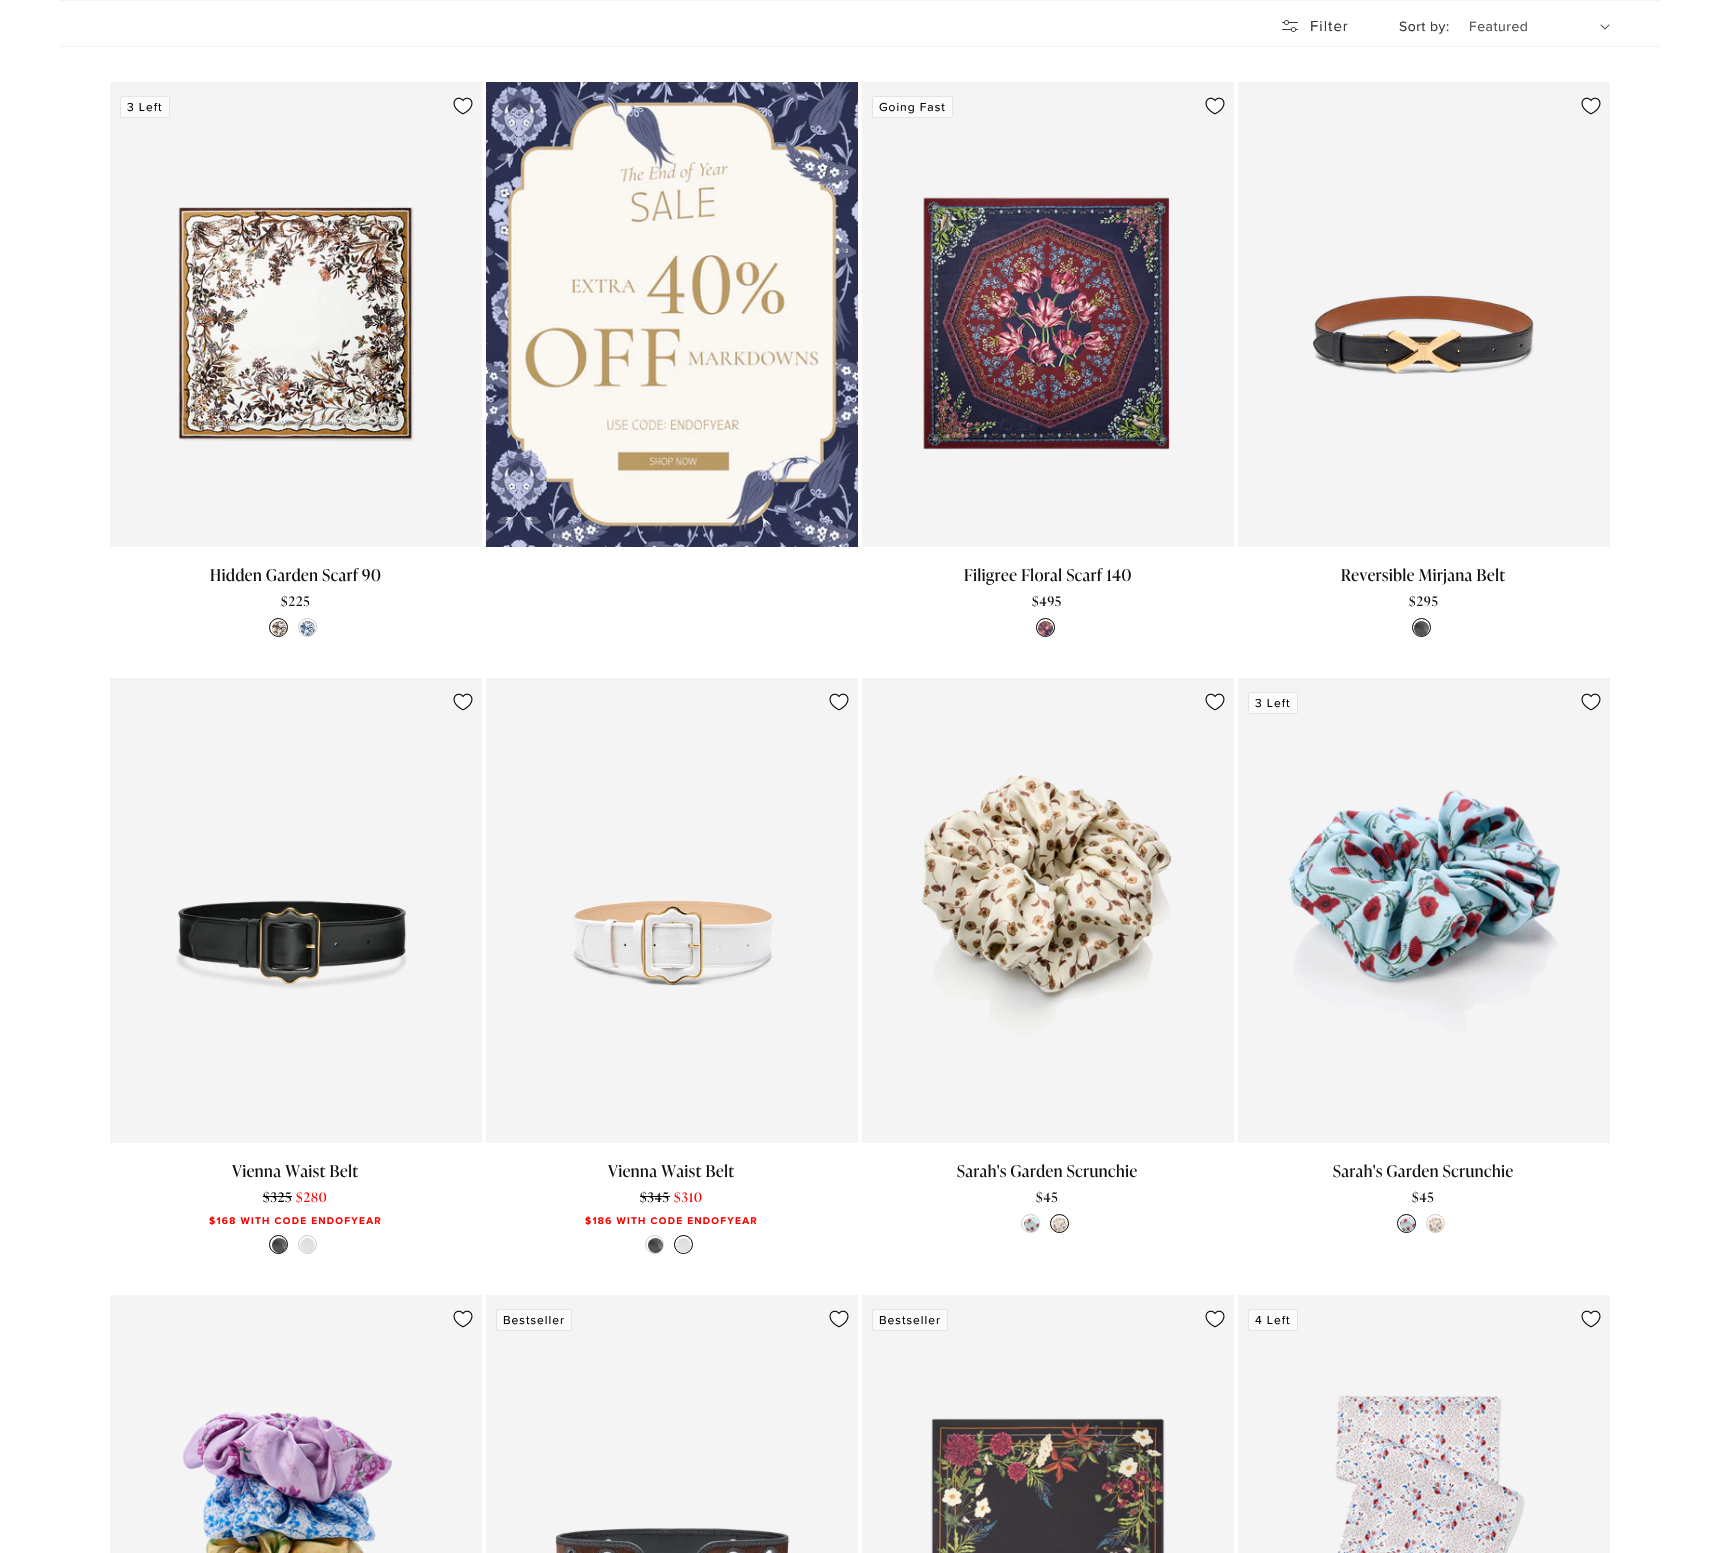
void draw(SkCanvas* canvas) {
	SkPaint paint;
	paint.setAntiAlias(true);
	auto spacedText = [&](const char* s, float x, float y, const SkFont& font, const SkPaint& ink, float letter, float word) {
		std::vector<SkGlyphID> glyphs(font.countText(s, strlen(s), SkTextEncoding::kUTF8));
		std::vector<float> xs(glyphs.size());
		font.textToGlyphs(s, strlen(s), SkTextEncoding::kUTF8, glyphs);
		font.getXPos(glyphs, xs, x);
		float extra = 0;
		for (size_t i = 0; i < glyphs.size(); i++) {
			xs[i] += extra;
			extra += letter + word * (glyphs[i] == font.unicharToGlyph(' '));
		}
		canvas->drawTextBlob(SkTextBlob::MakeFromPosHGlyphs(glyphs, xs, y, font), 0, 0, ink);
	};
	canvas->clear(0xffffffff);
	paint.setColor(0xfff4f4f4);
	canvas->drawRect(SkRect::MakeXYWH(60, 0, 1600, 1), paint);
	canvas->drawRect(SkRect::MakeXYWH(60, 46, 1600, 1), paint);
	canvas->drawImageRect(SkImages::DeferredFromEncodedData(SkData::MakeFromFileName("img1.png")), SkRect::MakeXYWH(1282, 20, 16, 12), SkSamplingOptions());
	SkFont f1(fontMgr->matchFamilyStyle("Proxima Nova", SkFontStyle::Normal()), 15);
	f1.setSubpixel(true);
	paint.setColor(0xff363636);
	spacedText("Filter", 1310, 31, f1, paint, 1, 0);
	SkFont f2(fontMgr->matchFamilyStyle("Proxima Nova", SkFontStyle::Normal()), 14);
	f2.setSubpixel(true);
	spacedText("Sort by:", 1399, 31, f2, paint, 0.5, 0);
	paint.setColor(0xff4d4d4d);
	spacedText("Featured", 1469, 31, f2, paint, 0.5, 0);
	canvas->drawImageRect(SkImages::DeferredFromEncodedData(SkData::MakeFromFileName("img2.png")), SkRect::MakeXYWH(1600, 24, 10, 6), SkSamplingOptions());
	paint.setColor(0xfff4f4f4);
	canvas->drawRect(SkRect::MakeXYWH(110, 82, 372, 465), paint);
	paint.setColor(0xfffbfbfb);
	canvas->drawRoundRect(SkRect::MakeXYWH(120.5, 96.5, 49, 21), 1.5, 1.5, paint);
	paint.setStroke(true);
	paint.setStrokeWidth(1);
	paint.setColor(0xffe4e4e4);
	canvas->drawRoundRect(SkRect::MakeXYWH(120.5, 96.5, 49, 21), 1.5, 1.5, paint);
	SkFont f3(fontMgr->matchFamilyStyle("Proxima Nova", SkFontStyle::Normal()), 12);
	f3.setSubpixel(true);
	paint.setStroke(false);
	paint.setColor(0xff000000);
	spacedText("3 Left", 127, 111, f3, paint, 1, 0);
	canvas->drawImageRect(SkImages::DeferredFromEncodedData(SkData::MakeFromFileName("img3.png")), SkRect::MakeXYWH(178, 207, 236, 235), SkSamplingOptions());
	SkFont f4(fontMgr->matchFamilyStyle("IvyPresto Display", SkFontStyle::Normal()), 16.25);
	f4.setSubpixel(true);
	paint.setColor(0xff121212);
	spacedText("Hidden Garden Scarf 90", 210, 581, f4, paint, 0.6, 0);
	SkFont f5(fontMgr->matchFamilyStyle("IvyPresto Display", SkFontStyle::Normal()), 13);
	f5.setSubpixel(true);
	spacedText("$225", 281, 606, f5, paint, 1, 0);
	paint.setStroke(true);
	paint.setColor(0xff000000);
	canvas->drawCircle(278.5, 627.5, 9, paint);
	canvas->drawImageRect(SkImages::DeferredFromEncodedData(SkData::MakeFromFileName("img4.png")), SkRect::MakeXYWH(272, 621, 15, 15), SkSamplingOptions());
	paint.setColor(0xffcccccc);
	canvas->drawCircle(307.5, 627.5, 9, paint);
	canvas->drawImageRect(SkImages::DeferredFromEncodedData(SkData::MakeFromFileName("img5.png")), SkRect::MakeXYWH(300, 621, 15, 15), SkSamplingOptions());
	canvas->drawImageRect(SkImages::DeferredFromEncodedData(SkData::MakeFromFileName("img6.png")), SkRect::MakeXYWH(453, 97, 20, 18), SkSamplingOptions());
	canvas->drawImageRect(SkImages::DeferredFromEncodedData(SkData::MakeFromFileName("img7.png")), SkRect::MakeXYWH(486, 82, 372, 465), SkSamplingOptions());
	paint.setStroke(false);
	paint.setColor(0xfff4f4f4);
	canvas->drawRect(SkRect::MakeXYWH(862, 82, 372, 465), paint);
	paint.setColor(0xfffbfbfb);
	canvas->drawRoundRect(SkRect::MakeXYWH(872.5, 96.5, 80, 21), 1.5, 1.5, paint);
	paint.setStroke(true);
	paint.setColor(0xffe4e4e4);
	canvas->drawRoundRect(SkRect::MakeXYWH(872.5, 96.5, 80, 21), 1.5, 1.5, paint);
	paint.setStroke(false);
	paint.setColor(0xff000000);
	spacedText("Going Fast", 879, 111, f3, paint, 1, 0);
	canvas->drawImageRect(SkImages::DeferredFromEncodedData(SkData::MakeFromFileName("img8.png")), SkRect::MakeXYWH(923, 197, 247, 253), SkSamplingOptions());
	paint.setColor(0xff121212);
	spacedText("Filigree Floral Scarf 140", 964, 581, f4, paint, 0.6, 0);
	spacedText("$495", 1032, 606, f5, paint, 1, 0);
	paint.setStroke(true);
	paint.setColor(0xff000000);
	canvas->drawCircle(1045.5, 627.5, 9, paint);
	canvas->drawImageRect(SkImages::DeferredFromEncodedData(SkData::MakeFromFileName("img9.png")), SkRect::MakeXYWH(1038, 621, 15, 15), SkSamplingOptions());
	canvas->drawImageRect(SkImages::DeferredFromEncodedData(SkData::MakeFromFileName("img6.png")), SkRect::MakeXYWH(1205, 97, 20, 18), SkSamplingOptions());
	paint.setStroke(false);
	paint.setColor(0xfff4f4f4);
	canvas->drawRect(SkRect::MakeXYWH(1238, 82, 372, 465), paint);
	canvas->drawImageRect(SkImages::DeferredFromEncodedData(SkData::MakeFromFileName("img6.png")), SkRect::MakeXYWH(1581, 97, 20, 18), SkSamplingOptions());
	canvas->drawImageRect(SkImages::DeferredFromEncodedData(SkData::MakeFromFileName("img10.png")), SkRect::MakeXYWH(1312, 295, 222, 79), SkSamplingOptions());
	paint.setColor(0xff121212);
	spacedText("Reversible Mirjana Belt", 1341, 581, f4, paint, 0.6, 0);
	spacedText("$295", 1409, 606, f5, paint, 1, 0);
	paint.setStroke(true);
	paint.setColor(0xff000000);
	canvas->drawCircle(1421.5, 627.5, 9, paint);
	canvas->drawImageRect(SkImages::DeferredFromEncodedData(SkData::MakeFromFileName("img11.png")), SkRect::MakeXYWH(1414, 621, 15, 15), SkSamplingOptions());
	paint.setStroke(false);
	paint.setColor(0xfff4f4f4);
	canvas->drawRect(SkRect::MakeXYWH(110, 678, 372, 465), paint);
	canvas->drawImageRect(SkImages::DeferredFromEncodedData(SkData::MakeFromFileName("img6.png")), SkRect::MakeXYWH(453, 693, 20, 18), SkSamplingOptions());
	canvas->drawImageRect(SkImages::DeferredFromEncodedData(SkData::MakeFromFileName("img12.png")), SkRect::MakeXYWH(176, 900, 231, 89), SkSamplingOptions());
	paint.setColor(0xff121212);
	spacedText("Vienna Waist Belt", 232, 1177, f4, paint, 0.6, 0);
	paint.setColor(0xff000000);
	spacedText("$325", 263, 1202, f5, paint, 1, 0);
	canvas->drawRect(SkRect::MakeXYWH(263, 1196, 29, 1), paint);
	paint.setColor(0xffff0000);
	spacedText("$280", 296, 1202, f5, paint, 1, 0);
	SkFont f6(fontMgr->matchFamilyStyle("Proxima Nova", SkFontStyle::Bold()), 10);
	f6.setSubpixel(true);
	spacedText("$168 WITH CODE ENDOFYEAR", 209, 1224, f6, paint, 1.3, 0);
	paint.setStroke(true);
	paint.setColor(0xff000000);
	canvas->drawCircle(278.5, 1244.5, 9, paint);
	canvas->drawImageRect(SkImages::DeferredFromEncodedData(SkData::MakeFromFileName("img13.png")), SkRect::MakeXYWH(272, 1238, 15, 15), SkSamplingOptions());
	paint.setColor(0xffcccccc);
	canvas->drawCircle(307.5, 1244.5, 9, paint);
	canvas->drawImageRect(SkImages::DeferredFromEncodedData(SkData::MakeFromFileName("img14.png")), SkRect::MakeXYWH(300, 1238, 15, 15), SkSamplingOptions());
	paint.setStroke(false);
	paint.setColor(0xfff4f4f4);
	canvas->drawRect(SkRect::MakeXYWH(486, 678, 372, 465), paint);
	canvas->drawImageRect(SkImages::DeferredFromEncodedData(SkData::MakeFromFileName("img6.png")), SkRect::MakeXYWH(829, 693, 20, 18), SkSamplingOptions());
	canvas->drawImageRect(SkImages::DeferredFromEncodedData(SkData::MakeFromFileName("img15.png")), SkRect::MakeXYWH(572, 900, 202, 86), SkSamplingOptions());
	paint.setColor(0xff121212);
	spacedText("Vienna Waist Belt", 608, 1177, f4, paint, 0.6, 0);
	paint.setColor(0xff000000);
	spacedText("$345", 640, 1202, f5, paint, 1, 0);
	canvas->drawRect(SkRect::MakeXYWH(640, 1196, 30, 1), paint);
	paint.setColor(0xffff0000);
	spacedText("$310", 674, 1202, f5, paint, 1, 0);
	spacedText("$186 WITH CODE ENDOFYEAR", 585, 1224, f6, paint, 1.3, 0);
	paint.setStroke(true);
	paint.setColor(0xffcccccc);
	canvas->drawCircle(654.5, 1244.5, 9, paint);
	canvas->drawImageRect(SkImages::DeferredFromEncodedData(SkData::MakeFromFileName("img16.png")), SkRect::MakeXYWH(648, 1238, 15, 15), SkSamplingOptions());
	paint.setColor(0xff000000);
	canvas->drawCircle(683.5, 1244.5, 9, paint);
	canvas->drawImageRect(SkImages::DeferredFromEncodedData(SkData::MakeFromFileName("img17.png")), SkRect::MakeXYWH(676, 1238, 15, 15), SkSamplingOptions());
	paint.setStroke(false);
	paint.setColor(0xfff4f4f4);
	canvas->drawRect(SkRect::MakeXYWH(862, 678, 372, 465), paint);
	canvas->drawImageRect(SkImages::DeferredFromEncodedData(SkData::MakeFromFileName("img6.png")), SkRect::MakeXYWH(1205, 693, 20, 18), SkSamplingOptions());
	canvas->drawImageRect(SkImages::DeferredFromEncodedData(SkData::MakeFromFileName("img18.png")), SkRect::MakeXYWH(921, 775, 251, 262), SkSamplingOptions());
	paint.setColor(0xff121212);
	spacedText("Sarah's Garden Scrunchie", 957, 1177, f4, paint, 0.6, 0);
	spacedText("$45", 1036, 1202, f5, paint, 1, 0);
	paint.setStroke(true);
	paint.setColor(0xffcccccc);
	canvas->drawCircle(1030.5, 1223.5, 9, paint);
	canvas->drawImageRect(SkImages::DeferredFromEncodedData(SkData::MakeFromFileName("img19.png")), SkRect::MakeXYWH(1024, 1217, 15, 15), SkSamplingOptions());
	paint.setColor(0xff000000);
	canvas->drawCircle(1059.5, 1223.5, 9, paint);
	canvas->drawImageRect(SkImages::DeferredFromEncodedData(SkData::MakeFromFileName("img20.png")), SkRect::MakeXYWH(1052, 1217, 15, 15), SkSamplingOptions());
	paint.setStroke(false);
	paint.setColor(0xfff4f4f4);
	canvas->drawRect(SkRect::MakeXYWH(1238, 678, 372, 465), paint);
	paint.setColor(0xfffbfbfb);
	canvas->drawRoundRect(SkRect::MakeXYWH(1248.5, 692.5, 49, 21), 1.5, 1.5, paint);
	paint.setStroke(true);
	paint.setColor(0xffe4e4e4);
	canvas->drawRoundRect(SkRect::MakeXYWH(1248.5, 692.5, 49, 21), 1.5, 1.5, paint);
	paint.setStroke(false);
	paint.setColor(0xff000000);
	spacedText("3 Left", 1255, 707, f3, paint, 1, 0);
	canvas->drawImageRect(SkImages::DeferredFromEncodedData(SkData::MakeFromFileName("img21.png")), SkRect::MakeXYWH(1289, 789, 272, 244), SkSamplingOptions());
	paint.setColor(0xff121212);
	spacedText("Sarah's Garden Scrunchie", 1333, 1177, f4, paint, 0.6, 0);
	spacedText("$45", 1412, 1202, f5, paint, 1, 0);
	paint.setStroke(true);
	paint.setColor(0xff000000);
	canvas->drawCircle(1406.5, 1223.5, 9, paint);
	canvas->drawImageRect(SkImages::DeferredFromEncodedData(SkData::MakeFromFileName("img22.png")), SkRect::MakeXYWH(1400, 1217, 15, 15), SkSamplingOptions());
	paint.setColor(0xffcccccc);
	canvas->drawCircle(1435.5, 1223.5, 9, paint);
	canvas->drawImageRect(SkImages::DeferredFromEncodedData(SkData::MakeFromFileName("img23.png")), SkRect::MakeXYWH(1428, 1217, 15, 15), SkSamplingOptions());
	canvas->drawImageRect(SkImages::DeferredFromEncodedData(SkData::MakeFromFileName("img6.png")), SkRect::MakeXYWH(1581, 693, 20, 18), SkSamplingOptions());
	paint.setStroke(false);
	paint.setColor(0xfff4f4f4);
	canvas->drawRect(SkRect::MakeXYWH(110, 1295, 372, 258), paint);
	canvas->drawImageRect(SkImages::DeferredFromEncodedData(SkData::MakeFromFileName("img24.png")), SkRect::MakeXYWH(182, 1412, 210, 141), SkSamplingOptions());
	canvas->drawImageRect(SkImages::DeferredFromEncodedData(SkData::MakeFromFileName("img6.png")), SkRect::MakeXYWH(453, 1310, 20, 18), SkSamplingOptions());
	canvas->drawRect(SkRect::MakeXYWH(486, 1295, 372, 258), paint);
	paint.setColor(0xfffbfbfb);
	canvas->drawRoundRect(SkRect::MakeXYWH(496.5, 1309.5, 75, 21), 1.5, 1.5, paint);
	paint.setStroke(true);
	paint.setColor(0xffe4e4e4);
	canvas->drawRoundRect(SkRect::MakeXYWH(496.5, 1309.5, 75, 21), 1.5, 1.5, paint);
	paint.setStroke(false);
	paint.setColor(0xff000000);
	spacedText("Bestseller", 503, 1324, f3, paint, 1, 0);
	canvas->drawImageRect(SkImages::DeferredFromEncodedData(SkData::MakeFromFileName("img25.png")), SkRect::MakeXYWH(555, 1528, 234, 25), SkSamplingOptions());
	canvas->drawImageRect(SkImages::DeferredFromEncodedData(SkData::MakeFromFileName("img6.png")), SkRect::MakeXYWH(829, 1310, 20, 18), SkSamplingOptions());
	paint.setColor(0xfff4f4f4);
	canvas->drawRect(SkRect::MakeXYWH(862, 1295, 372, 258), paint);
	paint.setColor(0xfffbfbfb);
	canvas->drawRoundRect(SkRect::MakeXYWH(872.5, 1309.5, 75, 21), 1.5, 1.5, paint);
	paint.setStroke(true);
	paint.setColor(0xffe4e4e4);
	canvas->drawRoundRect(SkRect::MakeXYWH(872.5, 1309.5, 75, 21), 1.5, 1.5, paint);
	paint.setStroke(false);
	paint.setColor(0xff000000);
	spacedText("Bestseller", 879, 1324, f3, paint, 1, 0);
	canvas->drawImageRect(SkImages::DeferredFromEncodedData(SkData::MakeFromFileName("img26.png")), SkRect::MakeXYWH(931, 1418, 234, 135), SkSamplingOptions());
	canvas->drawImageRect(SkImages::DeferredFromEncodedData(SkData::MakeFromFileName("img6.png")), SkRect::MakeXYWH(1205, 1310, 20, 18), SkSamplingOptions());
	paint.setColor(0xfff4f4f4);
	canvas->drawRect(SkRect::MakeXYWH(1238, 1295, 372, 258), paint);
	paint.setColor(0xfffbfbfb);
	canvas->drawRoundRect(SkRect::MakeXYWH(1248.5, 1309.5, 49, 21), 1.5, 1.5, paint);
	paint.setStroke(true);
	paint.setColor(0xffe4e4e4);
	canvas->drawRoundRect(SkRect::MakeXYWH(1248.5, 1309.5, 49, 21), 1.5, 1.5, paint);
	paint.setStroke(false);
	paint.setColor(0xff000000);
	spacedText("4 Left", 1255, 1324, f3, paint, 1, 0);
	canvas->drawImageRect(SkImages::DeferredFromEncodedData(SkData::MakeFromFileName("img27.png")), SkRect::MakeXYWH(1335, 1395, 190, 158), SkSamplingOptions());
	canvas->drawImageRect(SkImages::DeferredFromEncodedData(SkData::MakeFromFileName("img6.png")), SkRect::MakeXYWH(1581, 1310, 20, 18), SkSamplingOptions());
}
